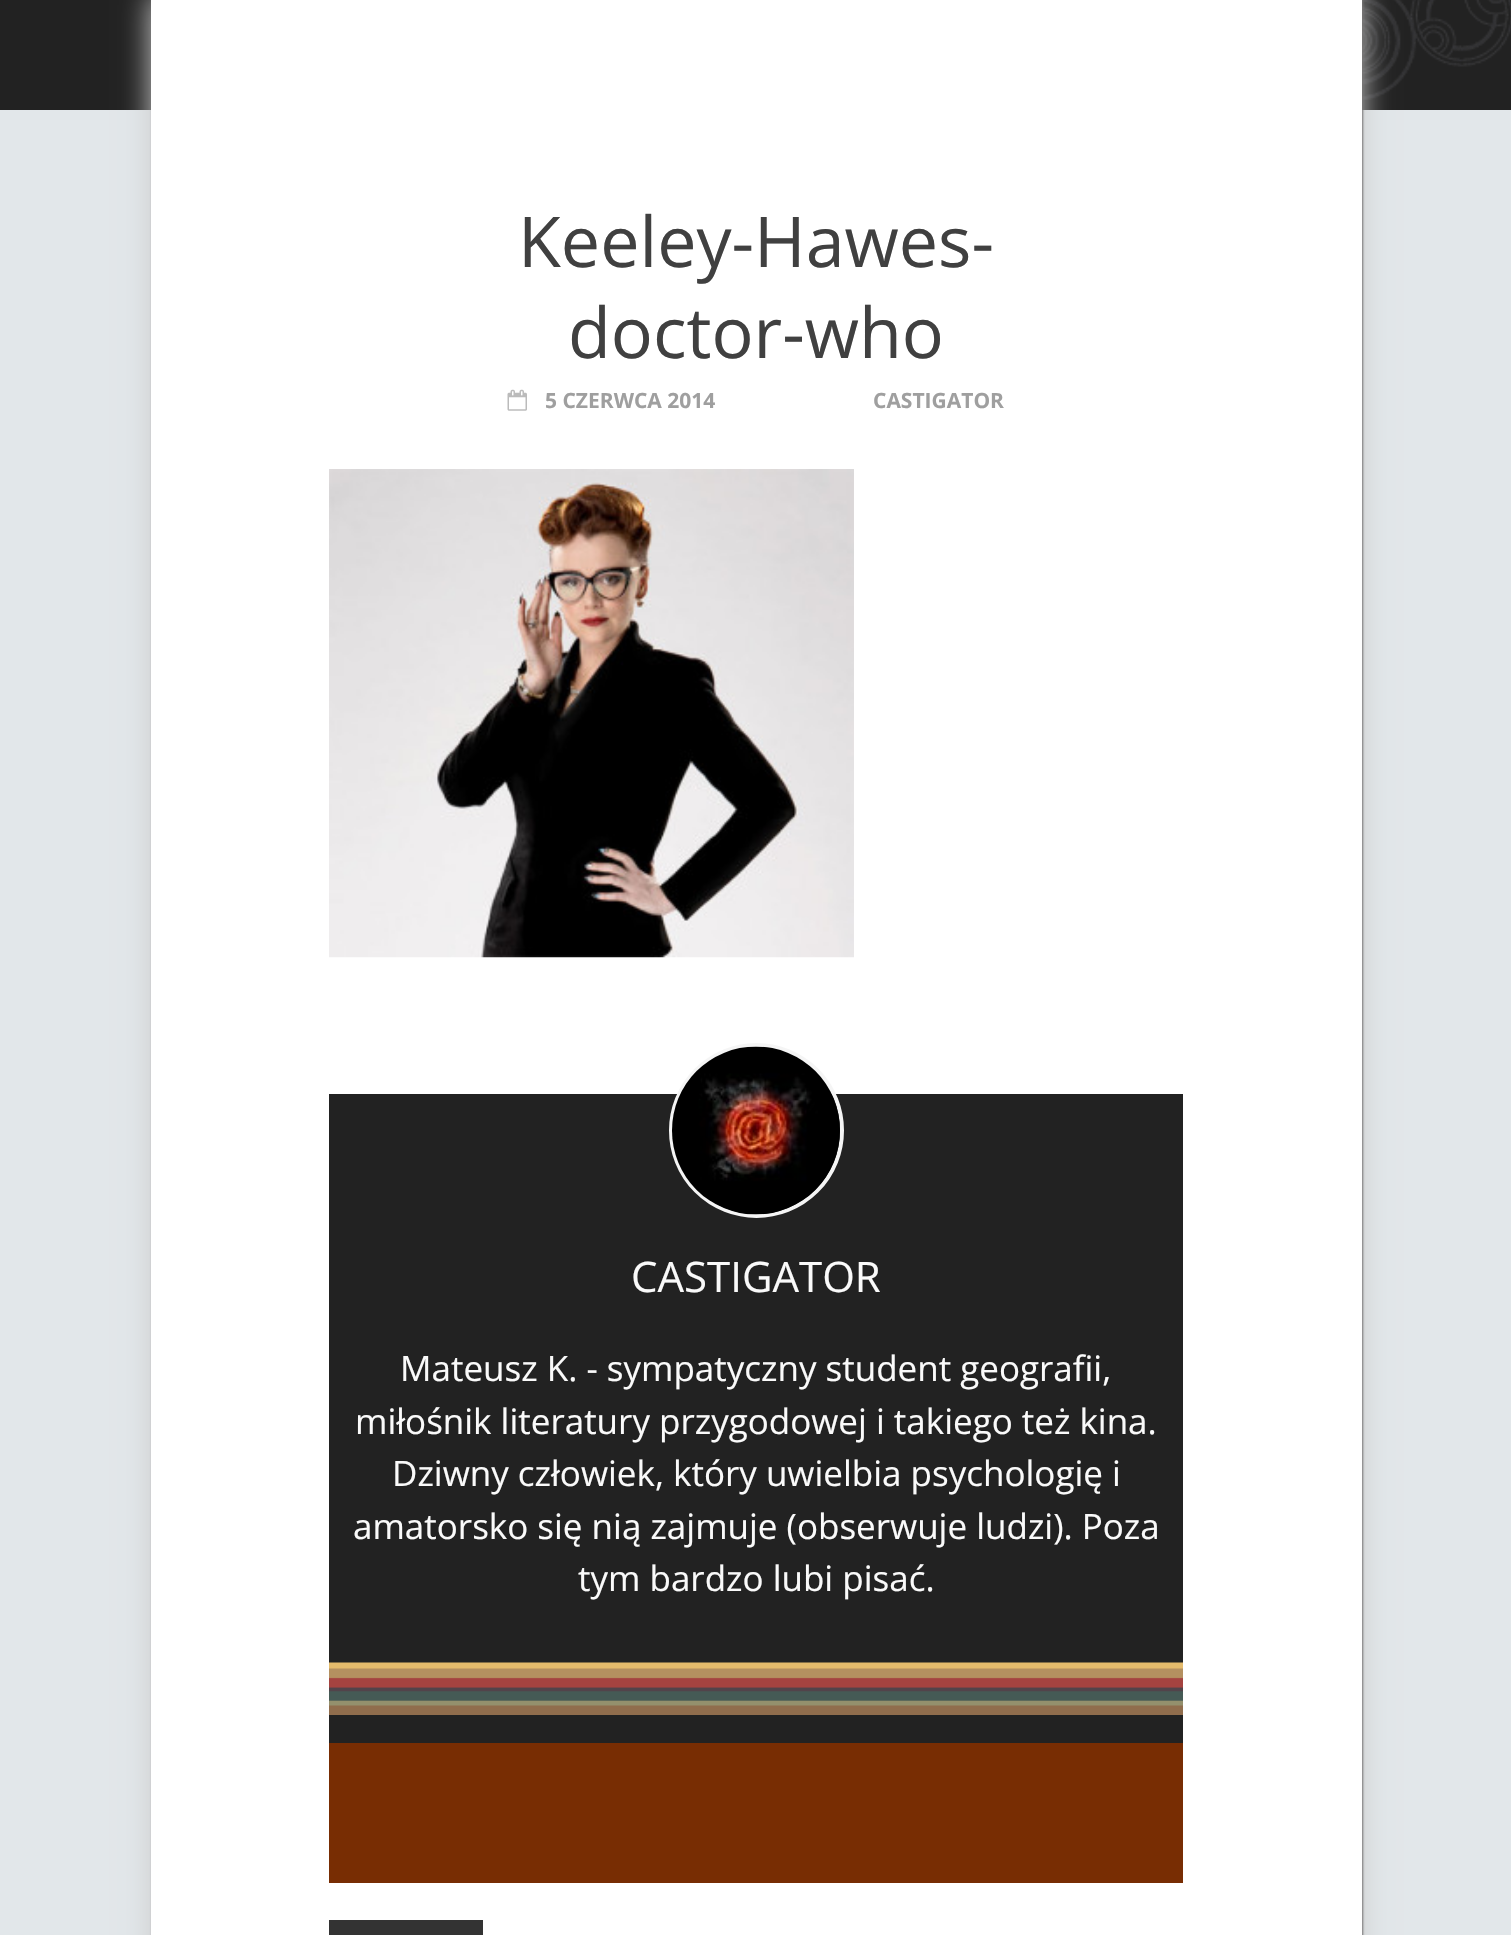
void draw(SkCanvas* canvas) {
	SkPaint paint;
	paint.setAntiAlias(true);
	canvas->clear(0xff222222);
	canvas->drawImageRect(SkImages::DeferredFromEncodedData(SkData::MakeFromFileName("img1.png")), SkRect::MakeXYWH(1362, 0, 149, 100), SkSamplingOptions());
	paint.setColor(0xffe2e7ea);
	canvas->drawRect(SkRect::MakeXYWH(0, 110, 1511, 1825), paint);
	paint.setColor(0xffcccccc);
	paint.setMaskFilter(SkMaskFilter::MakeBlur(kNormal_SkBlurStyle, 14));
	canvas->drawRect(SkRect::MakeXYWH(151, -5, 1211, 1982), paint);
	paint.setMaskFilter(nullptr);
	paint.setColor(0xff757373);
	paint.setMaskFilter(SkMaskFilter::MakeBlur(kNormal_SkBlurStyle, 1));
	canvas->drawRect(SkRect::MakeXYWH(152, -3, 1211, 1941), paint);
	paint.setMaskFilter(nullptr);
	paint.setColor(0xffffffff);
	canvas->drawRect(SkRect::MakeXYWH(151, 0, 1211, 1935), paint);
	SkFont f1(fontMgr->matchFamilyStyle("Open Sans", SkFontStyle::Normal()), 70);
	f1.setSubpixel(true);
	paint.setColor(0xff404040);
	canvas->drawString("Keeley-Hawes-", 518, 267, f1, paint);
	canvas->drawString("doctor-who", 568, 358, f1, paint);
	canvas->drawImageRect(SkImages::DeferredFromEncodedData(SkData::MakeFromFileName("img2.png")), SkRect::MakeXYWH(507, 389, 20, 22), SkSamplingOptions());
	SkFont f2(fontMgr->matchFamilyStyle("Open Sans", SkFontStyle::Bold()), 21);
	f2.setSubpixel(true);
	paint.setColor(0xff9f9f9f);
	canvas->drawString("5 CZERWCA 2014", 545, 408, f2, paint);
	canvas->drawString("CASTIGATOR", 873, 408, f2, paint);
	canvas->drawImageRect(SkImages::DeferredFromEncodedData(SkData::MakeFromFileName("img3.png")), SkRect::MakeXYWH(329, 469, 525, 489), SkSamplingOptions());
	paint.setColor(0xff222222);
	canvas->drawRect(SkRect::MakeXYWH(329, 1094, 854, 649), paint);
	paint.setStroke(true);
	paint.setStrokeWidth(4);
	paint.setColor(0xfff5f5f5);
	canvas->drawCircle(756.5, 1130.5, 85.5, paint);
	canvas->drawImageRect(SkImages::DeferredFromEncodedData(SkData::MakeFromFileName("img4.png")), SkRect::MakeXYWH(672, 1046, 168, 169), SkSamplingOptions());
	SkFont f3(fontMgr->matchFamilyStyle("Open Sans", SkFontStyle::Normal()), 42);
	f3.setSubpixel(true);
	paint.setStroke(false);
	paint.setColor(0xfffafafa);
	canvas->drawString("CASTIGATOR", 631, 1292, f3, paint);
	SkFont f4(fontMgr->matchFamilyStyle("Open Sans", SkFontStyle::Normal()), 35);
	f4.setSubpixel(true);
	canvas->drawString("Mateusz K. - sympatyczny student geografii,", 400, 1381, f4, paint);
	canvas->drawString("miłośnik literatury przygodowej i takiego też kina.", 355, 1434, f4, paint);
	canvas->drawString("Dziwny człowiek, który uwielbia psychologię i", 392, 1486, f4, paint);
	canvas->drawString("amatorsko się nią zajmuje (obserwuje ludzi). Poza", 353, 1539, f4, paint);
	canvas->drawString("tym bardzo lubi pisać.", 578, 1591, f4, paint);
	canvas->drawImageRect(SkImages::DeferredFromEncodedData(SkData::MakeFromFileName("img5.png")), SkRect::MakeXYWH(329, 1662, 854, 53), SkSamplingOptions());
	paint.setColor(0xff782d03);
	canvas->drawRect(SkRect::MakeXYWH(329, 1743, 854, 140), paint);
	paint.setColor(0xff333333);
	canvas->drawRect(SkRect::MakeXYWH(329, 1920, 154, 15), paint);
}
